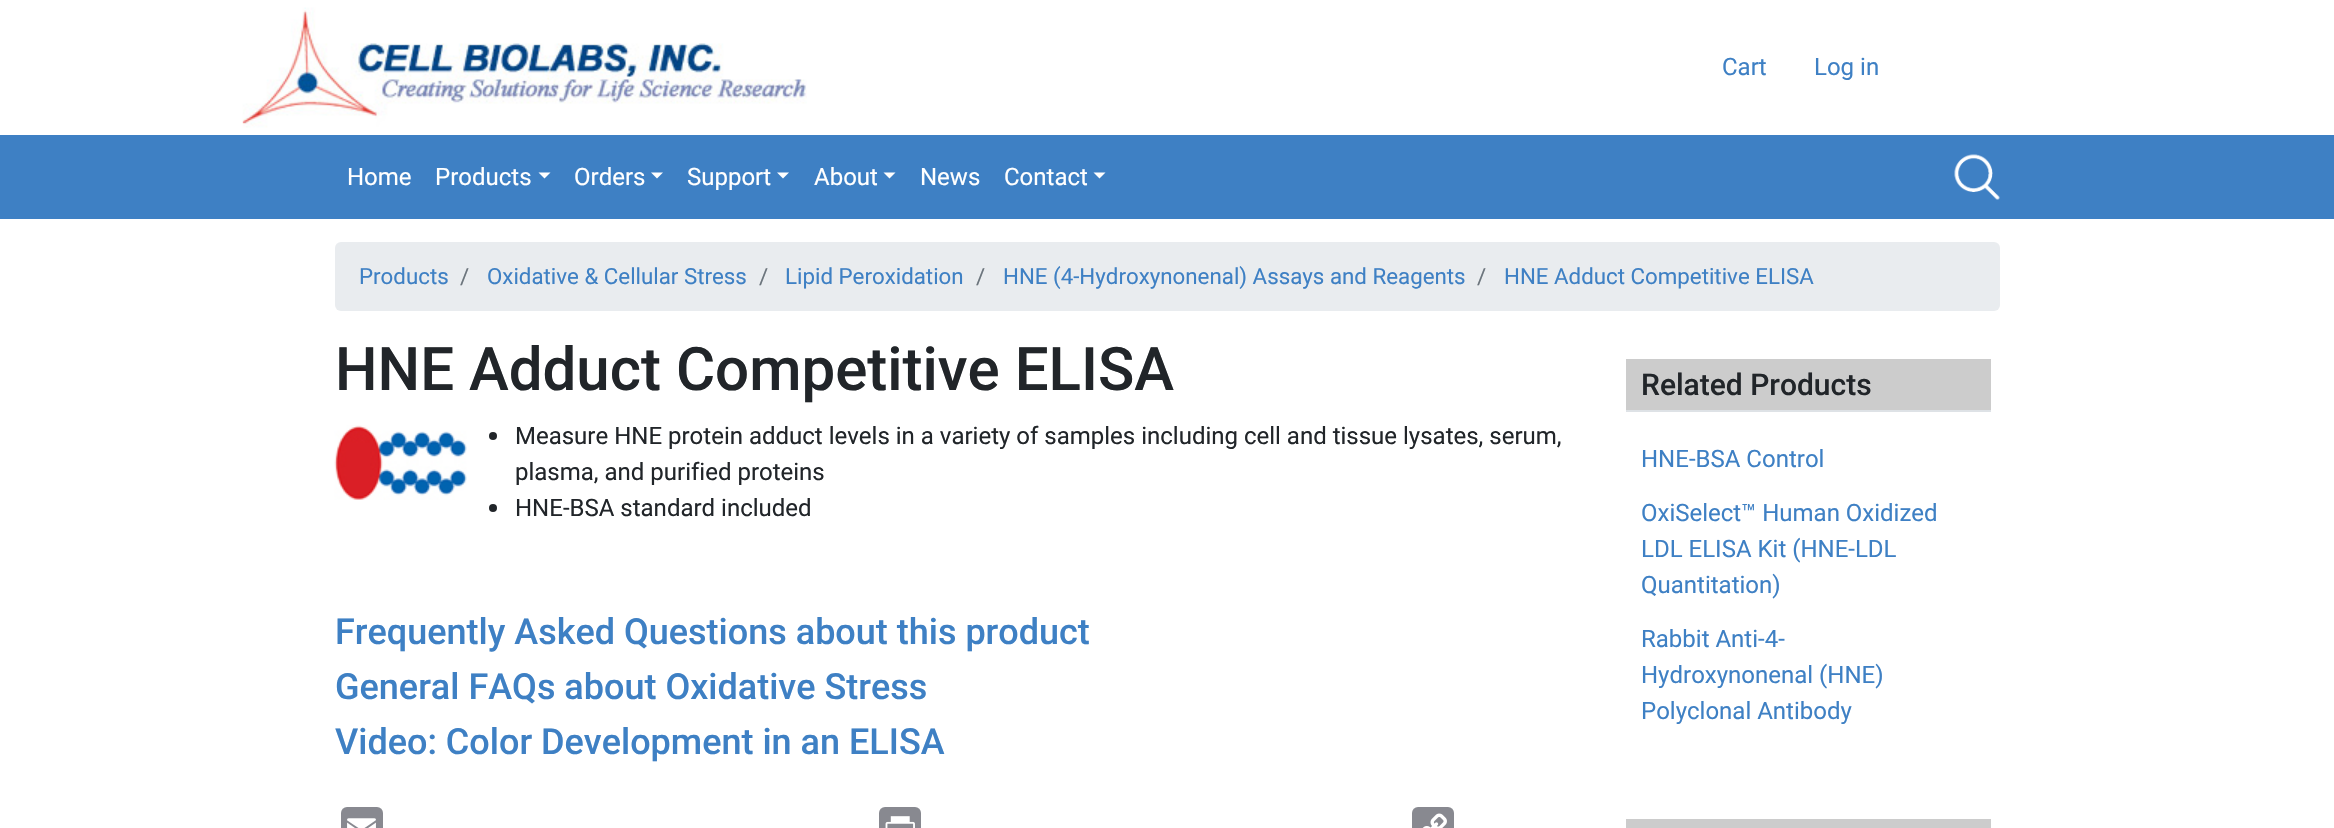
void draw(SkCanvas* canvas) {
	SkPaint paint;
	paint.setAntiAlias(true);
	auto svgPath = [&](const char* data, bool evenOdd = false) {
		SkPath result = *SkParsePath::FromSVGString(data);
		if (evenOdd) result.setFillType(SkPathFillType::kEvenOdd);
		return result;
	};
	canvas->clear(0xffffffff);
	canvas->drawImageRect(SkImages::DeferredFromEncodedData(SkData::MakeFromFileName("img1.png")), SkRect::MakeXYWH(242, 7, 565, 121), SkSamplingOptions());
	SkFont f1(fontMgr->matchFamilyStyle("Roboto", SkFontStyle::Normal()), 24);
	f1.setSubpixel(true);
	paint.setColor(0xff3e80c4);
	canvas->drawString("Cart", 1722, 75, f1, paint);
	canvas->drawString("Log in", 1814, 75, f1, paint);
	canvas->drawRect(SkRect::MakeXYWH(0, 135, 2334, 84), paint);
	paint.setColor(0xffffffff);
	canvas->drawString("Home", 347, 185, f1, paint);
	canvas->drawString("Products", 435, 185, f1, paint);
	canvas->drawPath(svgPath("M538.5 172.5H550.5L544.5 178.5Z"), paint);
	canvas->drawString("Orders", 574, 185, f1, paint);
	canvas->drawPath(svgPath("M651 172.5H663L657 178.5Z"), paint);
	canvas->drawString("Support", 687, 185, f1, paint);
	canvas->drawPath(svgPath("M777 172.5H789L783 178.5Z"), paint);
	canvas->drawString("About", 814, 185, f1, paint);
	canvas->drawPath(svgPath("M883.5 172.5H895.5L889.5 178.5Z"), paint);
	canvas->drawString("News", 920, 185, f1, paint);
	canvas->drawString("Contact", 1004, 185, f1, paint);
	canvas->drawPath(svgPath("M1093.5 172.5H1105.5L1099.5 178.5Z"), paint);
	canvas->drawImageRect(SkImages::DeferredFromEncodedData(SkData::MakeFromFileName("img2.png")), SkRect::MakeXYWH(1954, 154, 46, 46), SkSamplingOptions());
	paint.setColor(0xffe9ecef);
	canvas->drawRoundRect(SkRect::MakeXYWH(335, 242, 1665, 69), 6, 6, paint);
	SkFont f2(fontMgr->matchFamilyStyle("Roboto", SkFontStyle::Normal()), 22.3);
	f2.setSubpixel(true);
	paint.setColor(0xff3e80c4);
	canvas->drawString("Products", 359, 284, f2, paint);
	paint.setColor(0xff6c757d);
	canvas->drawString("/", 460, 284, f2, paint);
	paint.setColor(0xff3e80c4);
	canvas->drawString("Oxidative & Cellular Stress", 487, 284, f2, paint);
	paint.setColor(0xff6c757d);
	canvas->drawString("/", 759, 284, f2, paint);
	paint.setColor(0xff3e80c4);
	canvas->drawString("Lipid Peroxidation", 785, 284, f2, paint);
	paint.setColor(0xff6c757d);
	canvas->drawString("/", 976, 284, f2, paint);
	paint.setColor(0xff3e80c4);
	canvas->drawString("HNE (4-Hydroxynonenal) Assays and Reagents", 1003, 284, f2, paint);
	paint.setColor(0xff6c757d);
	canvas->drawString("/", 1477, 284, f2, paint);
	paint.setColor(0xff3e80c4);
	canvas->drawString("HNE Adduct Competitive ELISA", 1504, 284, f2, paint);
	SkFont f3(fontMgr->matchFamilyStyle("Roboto", SkFontStyle(500, SkFontStyle::kNormal_Width, SkFontStyle::kUpright_Slant)), 60);
	f3.setSubpixel(true);
	paint.setColor(0xff212529);
	canvas->drawString("HNE Adduct Competitive ELISA", 335, 390, f3, paint);
	canvas->drawImageRect(SkImages::DeferredFromEncodedData(SkData::MakeFromFileName("img3.png")), SkRect::MakeXYWH(334, 425, 133, 75), SkSamplingOptions());
	canvas->drawCircle(493, 436, 4, paint);
	canvas->drawString("Measure HNE protein adduct levels in a variety of samples including cell and tissue lysates, serum,", 515, 444, f1, paint);
	canvas->drawString("plasma, and purified proteins", 515, 480, f1, paint);
	canvas->drawCircle(493, 508, 4, paint);
	canvas->drawString("HNE-BSA standard included", 515, 516, f1, paint);
	SkFont f4(fontMgr->matchFamilyStyle("Roboto", SkFontStyle(500, SkFontStyle::kNormal_Width, SkFontStyle::kUpright_Slant)), 36);
	f4.setSubpixel(true);
	paint.setColor(0xff3e80c4);
	canvas->drawString("Frequently Asked Questions about this product", 335, 644, f4, paint);
	canvas->drawString("General FAQs about Oxidative Stress", 335, 699, f4, paint);
	canvas->drawString("Video: Color Development in an ELISA", 335, 754, f4, paint);
	paint.setColor(0xff888990);
	canvas->drawRoundRect(SkRect::MakeXYWH(341, 807, 42, 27), 6, 6, paint);
	canvas->drawImageRect(SkImages::DeferredFromEncodedData(SkData::MakeFromFileName("img4.png")), SkRect::MakeXYWH(347, 818, 29, 10), SkSamplingOptions());
	canvas->drawRoundRect(SkRect::MakeXYWH(879, 807, 42, 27), 6, 6, paint);
	canvas->drawImageRect(SkImages::DeferredFromEncodedData(SkData::MakeFromFileName("img5.png")), SkRect::MakeXYWH(885, 816, 30, 12), SkSamplingOptions());
	canvas->drawRoundRect(SkRect::MakeXYWH(1412, 807, 42, 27), 6, 6, paint);
	canvas->drawImageRect(SkImages::DeferredFromEncodedData(SkData::MakeFromFileName("img6.png")), SkRect::MakeXYWH(1422, 813, 25, 15), SkSamplingOptions());
	paint.setColor(0xffcccccc);
	canvas->drawRect(SkRect::MakeXYWH(1626, 359, 365, 51), paint);
	paint.setColor(0xffdee2e6);
	canvas->drawRect(SkRect::MakeXYWH(1626, 410, 365, 2), paint);
	SkFont f5(fontMgr->matchFamilyStyle("Roboto", SkFontStyle(500, SkFontStyle::kNormal_Width, SkFontStyle::kUpright_Slant)), 30);
	f5.setSubpixel(true);
	paint.setColor(0xff212529);
	canvas->drawString("Related Products", 1641, 395, f5, paint);
	paint.setColor(0xff3e80c4);
	canvas->drawString("HNE-BSA Control", 1641, 467, f1, paint);
	canvas->drawString("OxiSelect™ Human Oxidized", 1641, 521, f1, paint);
	canvas->drawString("LDL ELISA Kit (HNE-LDL", 1641, 557, f1, paint);
	canvas->drawString("Quantitation)", 1641, 593, f1, paint);
	canvas->drawString("Rabbit Anti-4-", 1641, 647, f1, paint);
	canvas->drawString("Hydroxynonenal (HNE)", 1641, 683, f1, paint);
	canvas->drawString("Polyclonal Antibody", 1641, 719, f1, paint);
	paint.setColor(0xffcccccc);
	canvas->drawRect(SkRect::MakeXYWH(1626, 819, 365, 9), paint);
}
